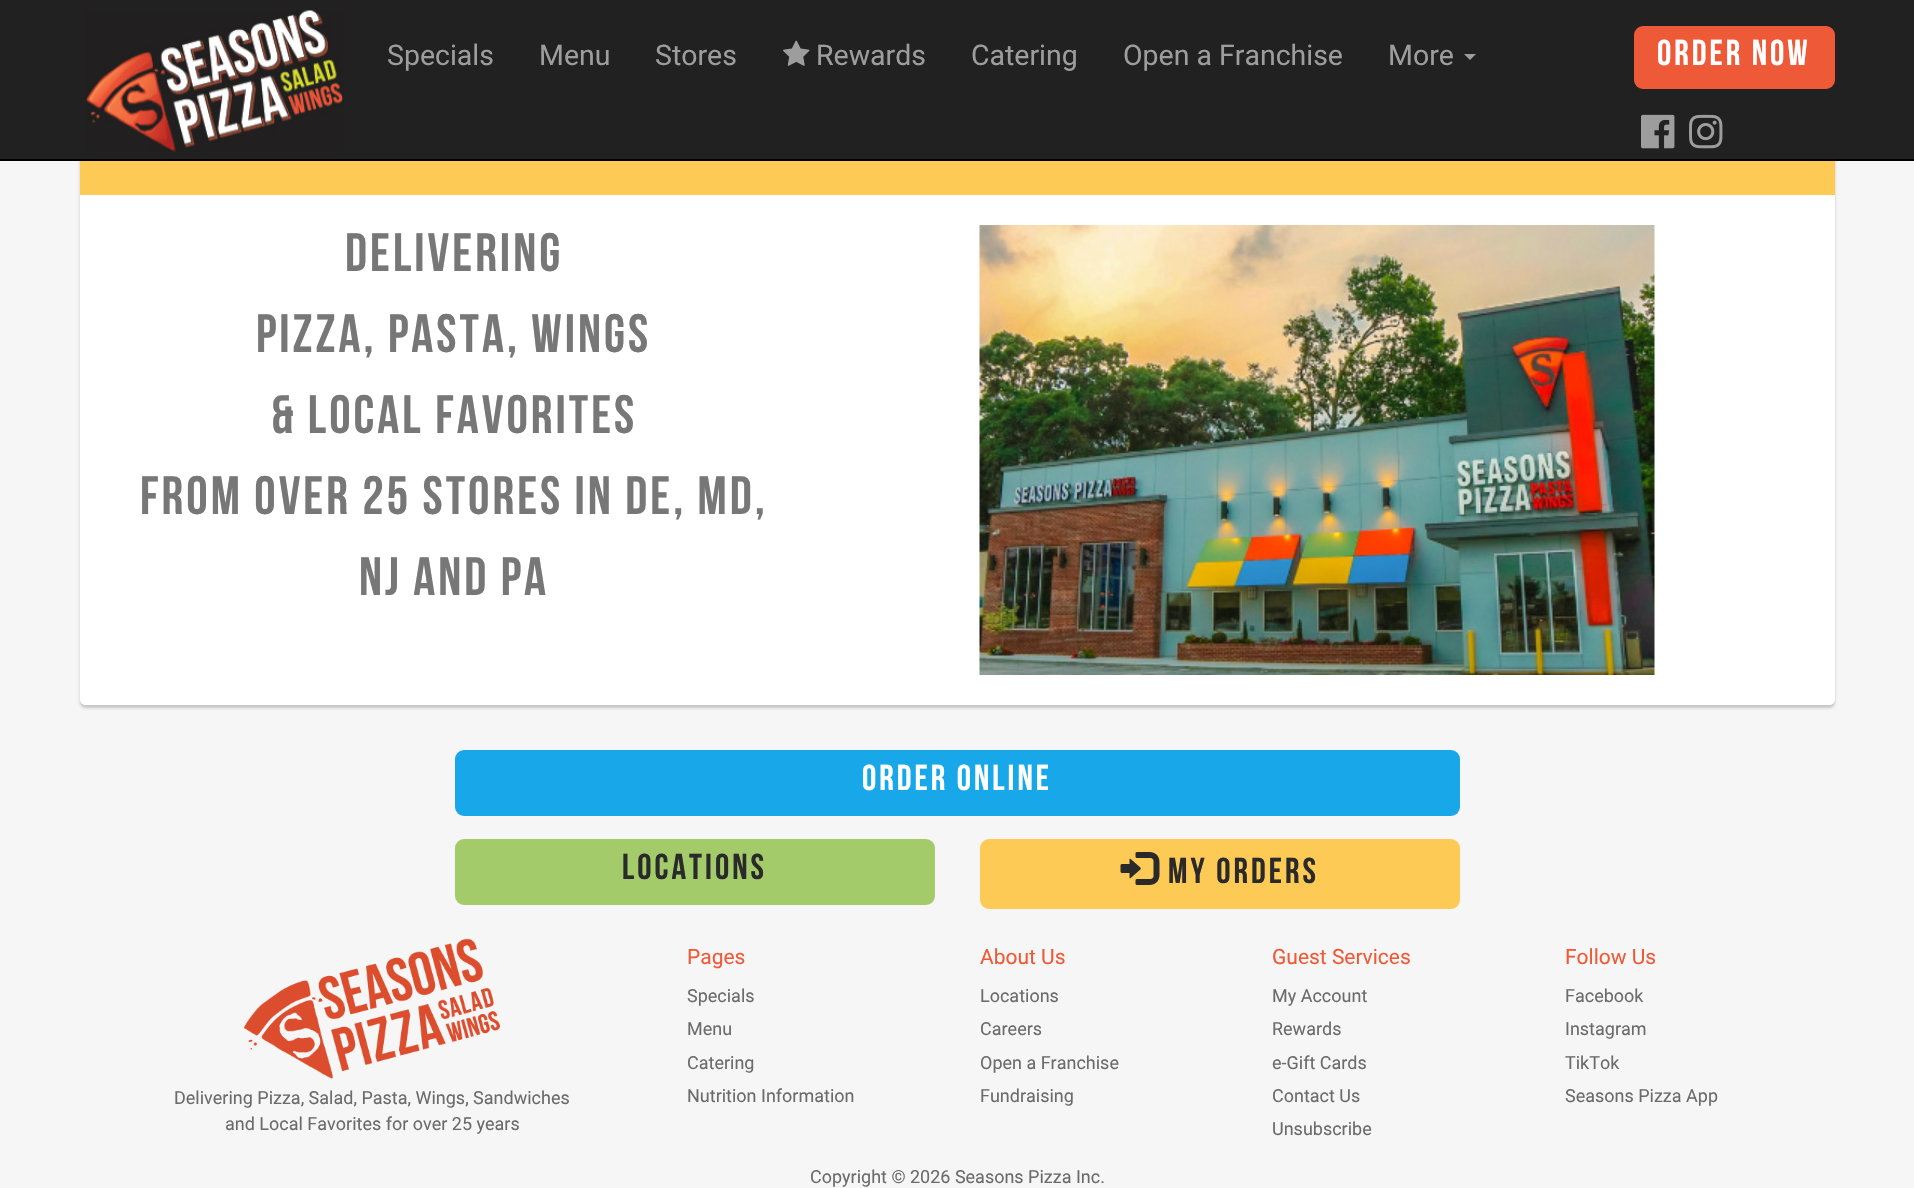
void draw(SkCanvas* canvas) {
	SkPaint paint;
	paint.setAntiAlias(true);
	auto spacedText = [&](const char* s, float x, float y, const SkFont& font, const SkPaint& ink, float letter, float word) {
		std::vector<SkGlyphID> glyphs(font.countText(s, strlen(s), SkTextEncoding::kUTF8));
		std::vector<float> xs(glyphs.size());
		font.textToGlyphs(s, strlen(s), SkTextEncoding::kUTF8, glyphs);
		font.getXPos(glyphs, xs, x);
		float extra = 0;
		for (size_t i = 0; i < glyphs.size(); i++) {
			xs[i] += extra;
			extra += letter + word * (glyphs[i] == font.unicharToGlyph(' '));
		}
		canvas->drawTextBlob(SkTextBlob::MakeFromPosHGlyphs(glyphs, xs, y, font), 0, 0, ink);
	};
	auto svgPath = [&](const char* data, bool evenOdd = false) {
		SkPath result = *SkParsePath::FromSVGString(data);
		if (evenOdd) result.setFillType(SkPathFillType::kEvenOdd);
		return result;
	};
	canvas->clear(0xfff6f6f6);
	canvas->save();
	canvas->clipPath(svgPath("M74 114H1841V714H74ZM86 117H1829C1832.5 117 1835 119.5 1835 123V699C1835 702.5 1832.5 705 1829 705H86C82.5 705 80 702.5 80 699V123C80 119.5 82.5 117 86 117Z", true), true);
	paint.setColor(0x33000000);
	paint.setMaskFilter(SkMaskFilter::MakeBlur(kNormal_SkBlurStyle, 1.5));
	canvas->drawRoundRect(SkRect::MakeXYWH(80, 120, 1755, 588), 6, 6, paint);
	paint.setMaskFilter(nullptr);
	canvas->restore();
	paint.setColor(0xe6ffffff);
	canvas->drawRoundRect(SkRect::MakeXYWH(80, 117, 1755, 588), 6, 6, paint);
	paint.setColor(0xff212121);
	canvas->drawRect(SkRect::MakeXYWH(0, 0, 1914, 159), paint);
	paint.setColor(0xff000000);
	canvas->drawRect(SkRect::MakeXYWH(0, 159, 1914, 2), paint);
	canvas->drawImageRect(SkImages::DeferredFromEncodedData(SkData::MakeFromFileName("img1.png")), SkRect::MakeXYWH(86, 10, 258, 142), SkSamplingOptions());
	SkFont f1(fontMgr->matchFamilyStyle("Roboto", SkFontStyle::Normal()), 28.5);
	f1.setSubpixel(true);
	paint.setColor(0xff9d9d9d);
	canvas->drawString("Specials", 387, 65, f1, paint);
	canvas->drawString("Menu", 539, 65, f1, paint);
	canvas->drawString("Stores", 655, 65, f1, paint);
	canvas->drawImageRect(SkImages::DeferredFromEncodedData(SkData::MakeFromFileName("img2.png")), SkRect::MakeXYWH(783, 40, 27, 26), SkSamplingOptions());
	canvas->drawString("Rewards", 816, 65, f1, paint);
	canvas->drawString("Catering", 971, 65, f1, paint);
	canvas->drawString("Open a Franchise", 1123, 65, f1, paint);
	canvas->drawString("More", 1388, 65, f1, paint);
	canvas->drawPath(svgPath("M1464 54H1476L1470 60Z"), paint);
	paint.setColor(0xffee5a37);
	canvas->drawRoundRect(SkRect::MakeXYWH(1634, 26, 201, 63), 9, 9, paint);
	SkFont f2(fontMgr->matchFamilyStyle("Bebas Neue", SkFontStyle::Normal()), 36);
	f2.setSubpixel(true);
	paint.setColor(0xffffffff);
	spacedText("Order Now", 1657, 65, f2, paint, 3, 0);
	canvas->drawImageRect(SkImages::DeferredFromEncodedData(SkData::MakeFromFileName("img3.png")), SkRect::MakeXYWH(1641, 114, 34, 35), SkSamplingOptions());
	canvas->drawImageRect(SkImages::DeferredFromEncodedData(SkData::MakeFromFileName("img4.png")), SkRect::MakeXYWH(1689, 114, 34, 35), SkSamplingOptions());
	paint.setColor(0xfffeca56);
	canvas->drawRect(SkRect::MakeXYWH(80, 161, 1755, 34), paint);
	SkFont f3(fontMgr->matchFamilyStyle("Bebas Neue", SkFontStyle::Normal()), 54);
	f3.setSubpixel(true);
	paint.setColor(0xff777777);
	spacedText("Delivering", 345, 271, f3, paint, 3, 0);
	spacedText("Pizza, Pasta, Wings", 256, 352, f3, paint, 3, 0);
	spacedText("& Local Favorites", 271, 433, f3, paint, 3, 0);
	spacedText("from over 25 Stores in DE, MD,", 140, 514, f3, paint, 3, 0);
	spacedText("NJ and PA", 359, 595, f3, paint, 3, 0);
	canvas->drawImageRect(SkImages::DeferredFromEncodedData(SkData::MakeFromFileName("img5.png")), SkRect::MakeXYWH(979, 225, 676, 450), SkSamplingOptions());
	paint.setColor(0xff18a8ea);
	canvas->drawRoundRect(SkRect::MakeXYWH(455, 750, 1005, 66), 9, 9, paint);
	paint.setColor(0xffffffff);
	spacedText("Order Online", 862, 790, f2, paint, 3, 0);
	paint.setColor(0xffa3cb6a);
	canvas->drawRoundRect(SkRect::MakeXYWH(455, 839, 480, 66), 9, 9, paint);
	paint.setColor(0xff2a2a2a);
	spacedText("Locations", 622, 879, f2, paint, 3, 0);
	paint.setColor(0xfffeca56);
	canvas->drawRoundRect(SkRect::MakeXYWH(980, 839, 480, 70), 9, 9, paint);
	canvas->drawImageRect(SkImages::DeferredFromEncodedData(SkData::MakeFromFileName("img6.png")), SkRect::MakeXYWH(1120, 852, 40, 33), SkSamplingOptions());
	paint.setColor(0xff2a2a2a);
	spacedText("My Orders", 1168, 883, f2, paint, 3, 0);
	SkFont f4(fontMgr->matchFamilyStyle("Roboto", SkFontStyle::Normal()), 21);
	f4.setSubpixel(true);
	paint.setColor(0xffee5a37);
	canvas->drawString("Pages", 687, 964, f4, paint);
	SkFont f5(fontMgr->matchFamilyStyle("Roboto", SkFontStyle::Normal()), 18);
	f5.setSubpixel(true);
	paint.setColor(0xff6b6b6b);
	canvas->drawString("Specials", 687, 1002, f5, paint);
	canvas->drawString("Menu", 687, 1035, f5, paint);
	canvas->drawString("Catering", 687, 1069, f5, paint);
	canvas->drawString("Nutrition Information", 687, 1102, f5, paint);
	paint.setColor(0xffee5a37);
	canvas->drawString("About Us", 980, 964, f4, paint);
	paint.setColor(0xff6b6b6b);
	canvas->drawString("Locations", 980, 1002, f5, paint);
	canvas->drawString("Careers", 980, 1035, f5, paint);
	canvas->drawString("Open a Franchise", 980, 1069, f5, paint);
	canvas->drawString("Fundraising", 980, 1102, f5, paint);
	paint.setColor(0xffee5a37);
	canvas->drawString("Guest Services", 1272, 964, f4, paint);
	paint.setColor(0xff6b6b6b);
	canvas->drawString("My Account", 1272, 1002, f5, paint);
	canvas->drawString("Rewards", 1272, 1035, f5, paint);
	canvas->drawString("e-Gift Cards", 1272, 1069, f5, paint);
	canvas->drawString("Contact Us", 1272, 1102, f5, paint);
	canvas->drawString("Unsubscribe", 1272, 1135, f5, paint);
	paint.setColor(0xffee5a37);
	canvas->drawString("Follow Us", 1565, 964, f4, paint);
	paint.setColor(0xff6b6b6b);
	canvas->drawString("Facebook", 1565, 1002, f5, paint);
	canvas->drawString("Instagram", 1565, 1035, f5, paint);
	canvas->drawString("TikTok", 1565, 1069, f5, paint);
	canvas->drawString("Seasons Pizza App", 1565, 1102, f5, paint);
	canvas->drawImageRect(SkImages::DeferredFromEncodedData(SkData::MakeFromFileName("img7.png")), SkRect::MakeXYWH(244, 938, 256, 141), SkSamplingOptions());
	canvas->drawString("Delivering Pizza, Salad, Pasta, Wings, Sandwiches", 174, 1104, f5, paint);
	canvas->drawString("and Local Favorites for over 25 years", 225, 1130, f5, paint);
	canvas->drawString("Copyright © 2026 Seasons Pizza Inc.", 810, 1183, f5, paint);
}
